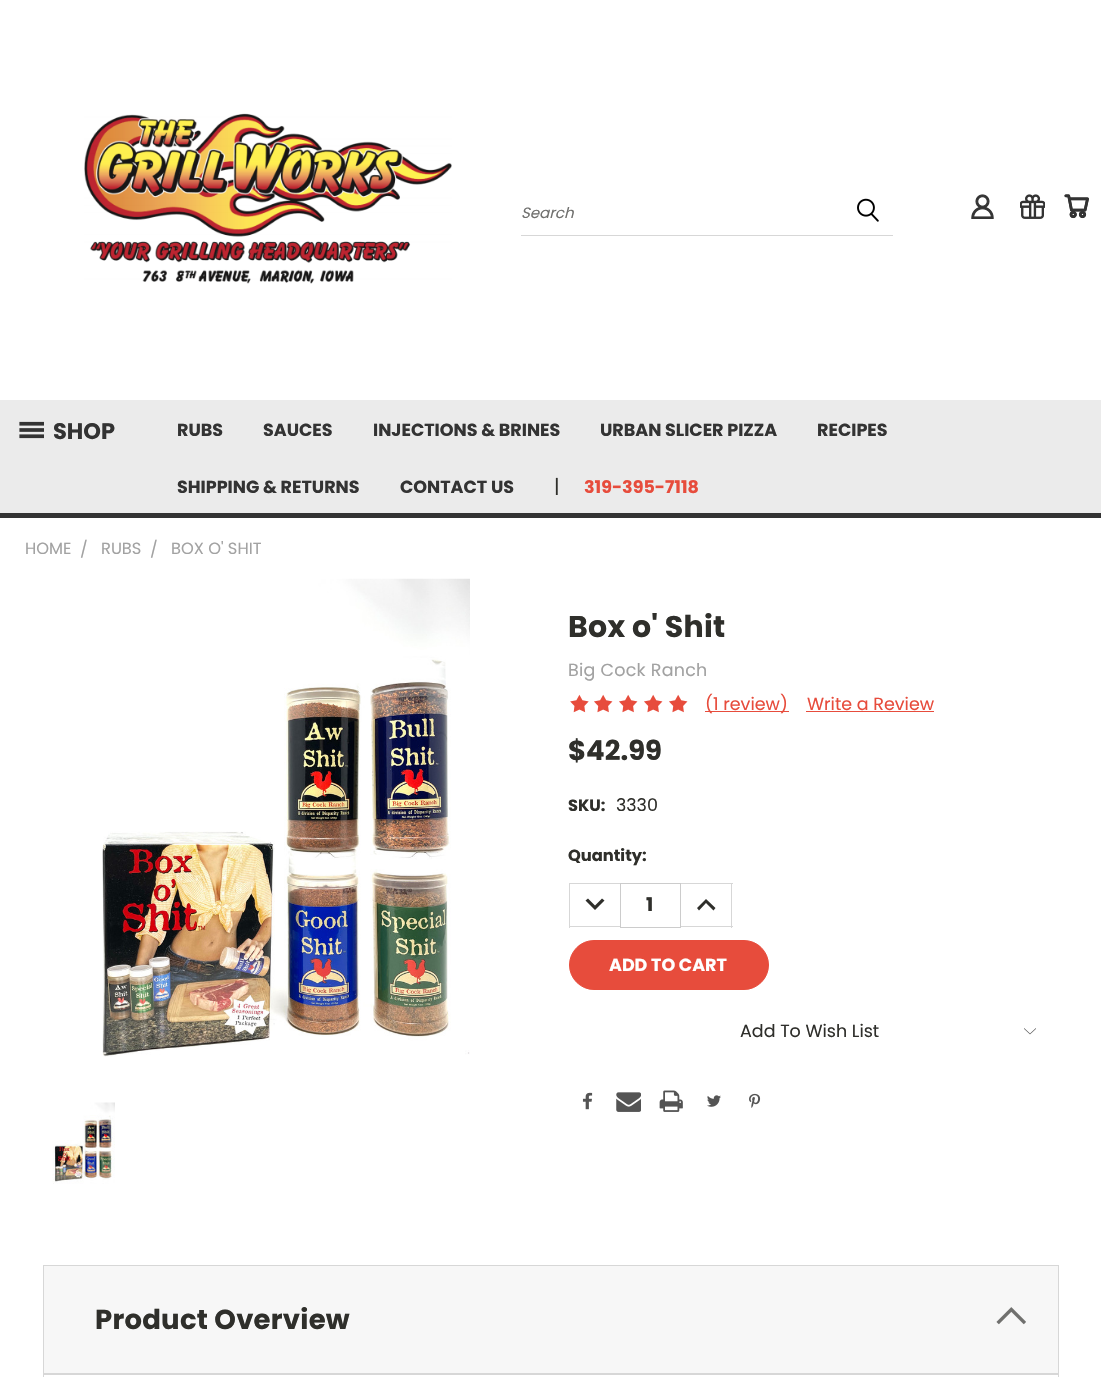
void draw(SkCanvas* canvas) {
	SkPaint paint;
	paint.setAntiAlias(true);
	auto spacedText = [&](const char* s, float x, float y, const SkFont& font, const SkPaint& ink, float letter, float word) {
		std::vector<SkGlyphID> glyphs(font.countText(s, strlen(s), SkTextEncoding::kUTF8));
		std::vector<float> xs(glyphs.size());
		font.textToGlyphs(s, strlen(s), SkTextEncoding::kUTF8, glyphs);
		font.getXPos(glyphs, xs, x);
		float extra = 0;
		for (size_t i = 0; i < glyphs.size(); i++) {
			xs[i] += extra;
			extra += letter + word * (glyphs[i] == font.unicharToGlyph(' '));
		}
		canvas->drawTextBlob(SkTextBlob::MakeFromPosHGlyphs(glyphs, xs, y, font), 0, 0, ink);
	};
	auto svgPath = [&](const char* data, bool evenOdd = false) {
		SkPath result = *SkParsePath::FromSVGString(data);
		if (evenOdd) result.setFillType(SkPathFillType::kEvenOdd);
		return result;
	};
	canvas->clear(0xffffffff);
	canvas->drawImageRect(SkImages::DeferredFromEncodedData(SkData::MakeFromFileName("img1.png")), SkRect::MakeXYWH(84, 113, 368, 171), SkSamplingOptions());
	paint.setColor(0xffd7d7d7);
	canvas->drawRect(SkRect::MakeXYWH(521, 235, 372, 1), paint);
	SkFont f1(fontMgr->matchFamilyStyle("Poppins", SkFontStyle::Italic()), 15);
	f1.setSubpixel(true);
	paint.setColor(0xff70706e);
	canvas->drawString("Search", 521, 218, f1, paint);
	canvas->drawImageRect(SkImages::DeferredFromEncodedData(SkData::MakeFromFileName("img2.png")), SkRect::MakeXYWH(857, 198, 22, 24), SkSamplingOptions());
	canvas->drawImageRect(SkImages::DeferredFromEncodedData(SkData::MakeFromFileName("img3.png")), SkRect::MakeXYWH(971, 194, 23, 25), SkSamplingOptions());
	canvas->drawImageRect(SkImages::DeferredFromEncodedData(SkData::MakeFromFileName("img4.png")), SkRect::MakeXYWH(1020, 194, 25, 25), SkSamplingOptions());
	canvas->drawImageRect(SkImages::DeferredFromEncodedData(SkData::MakeFromFileName("img5.png")), SkRect::MakeXYWH(1064, 194, 25, 25), SkSamplingOptions());
	paint.setColor(0xffebebeb);
	canvas->drawRect(SkRect::MakeXYWH(0, 400, 1101, 113), paint);
	canvas->drawImageRect(SkImages::DeferredFromEncodedData(SkData::MakeFromFileName("img6.png")), SkRect::MakeXYWH(19, 421, 25, 18), SkSamplingOptions());
	SkFont f2(fontMgr->matchFamilyStyle("Poppins", SkFontStyle::Bold()), 22.5);
	f2.setSubpixel(true);
	paint.setColor(0xff333333);
	canvas->drawString("SHOP", 53, 439, f2, paint);
	SkFont f3(fontMgr->matchFamilyStyle("Poppins", SkFontStyle::Bold()), 17.5);
	f3.setSubpixel(true);
	canvas->drawString("RUBS", 177, 436, f3, paint);
	canvas->drawString("SAUCES", 263, 436, f3, paint);
	canvas->drawString("INJECTIONS & BRINES", 373, 436, f3, paint);
	canvas->drawString("URBAN SLICER PIZZA", 600, 436, f3, paint);
	canvas->drawString("RECIPES", 817, 436, f3, paint);
	canvas->drawString("SHIPPING & RETURNS", 177, 493, f3, paint);
	canvas->drawString("CONTACT US", 400, 493, f3, paint);
	SkFont f4(fontMgr->matchFamilyStyle("Poppins", SkFontStyle::Normal()), 19);
	f4.setSubpixel(true);
	paint.setColor(0xff2f2f2b);
	canvas->drawString("|", 554, 493, f4, paint);
	paint.setColor(0xffe74c3c);
	canvas->drawString("319-395-7118", 584, 493, f3, paint);
	paint.setColor(0xff333333);
	canvas->drawRect(SkRect::MakeXYWH(0, 513, 1101, 5), paint);
	SkFont f5(fontMgr->matchFamilyStyle("Poppins", SkFontStyle::Normal()), 16.25);
	f5.setSubpixel(true);
	paint.setColor(0xffa2a2a2);
	canvas->drawString("HOME", 25, 554, f5, paint);
	canvas->drawString("/", 80, 555, f5, paint);
	canvas->drawString("RUBS", 101, 554, f5, paint);
	canvas->drawString("/", 150, 555, f5, paint);
	canvas->drawString("BOX O' SHIT", 171, 554, f5, paint);
	canvas->drawImageRect(SkImages::DeferredFromEncodedData(SkData::MakeFromFileName("img7.png")), SkRect::MakeXYWH(102, 578, 368, 479), SkSamplingOptions());
	canvas->drawImageRect(SkImages::DeferredFromEncodedData(SkData::MakeFromFileName("img8.png")), SkRect::MakeXYWH(52, 1102, 63, 82), SkSamplingOptions());
	SkFont f6(fontMgr->matchFamilyStyle("Poppins", SkFontStyle::Bold()), 30);
	f6.setSubpixel(true);
	paint.setColor(0xff2f2f2b);
	spacedText("Box o' Shit", 568, 637, f6, paint, 0.25, 0);
	SkFont f7(fontMgr->matchFamilyStyle("Poppins", SkFontStyle::Normal()), 17.5);
	f7.setSubpixel(true);
	paint.setColor(0xffa2a2a2);
	spacedText("Big Cock Ranch", 568, 676, f7, paint, 0.25, 0);
	canvas->drawImageRect(SkImages::DeferredFromEncodedData(SkData::MakeFromFileName("img9.png")), SkRect::MakeXYWH(570, 694, 19, 19), SkSamplingOptions());
	canvas->drawImageRect(SkImages::DeferredFromEncodedData(SkData::MakeFromFileName("img10.png")), SkRect::MakeXYWH(594, 694, 19, 19), SkSamplingOptions());
	canvas->drawImageRect(SkImages::DeferredFromEncodedData(SkData::MakeFromFileName("img10.png")), SkRect::MakeXYWH(619, 694, 19, 19), SkSamplingOptions());
	canvas->drawImageRect(SkImages::DeferredFromEncodedData(SkData::MakeFromFileName("img10.png")), SkRect::MakeXYWH(644, 694, 19, 19), SkSamplingOptions());
	canvas->drawImageRect(SkImages::DeferredFromEncodedData(SkData::MakeFromFileName("img10.png")), SkRect::MakeXYWH(669, 694, 19, 19), SkSamplingOptions());
	paint.setColor(0xffe74c3c);
	canvas->drawRect(SkRect::MakeXYWH(705, 711, 84, 1), paint);
	canvas->drawString("(1 review)", 705, 710, f7, paint);
	canvas->drawString("Write a Review", 807, 710, f7, paint);
	canvas->drawRect(SkRect::MakeXYWH(806, 711, 128, 1), paint);
	SkFont f8(fontMgr->matchFamilyStyle("Poppins", SkFontStyle::Bold()), 27.5);
	f8.setSubpixel(true);
	paint.setColor(0xff2f2f2b);
	canvas->drawString("$42.99", 568, 760, f8, paint);
	SkFont f9(fontMgr->matchFamilyStyle("Poppins", SkFontStyle::Bold()), 16.25);
	f9.setSubpixel(true);
	canvas->drawString("SKU:", 568, 811, f9, paint);
	canvas->drawString("3330", 616, 811, f7, paint);
	canvas->drawString("Quantity:", 568, 861, f9, paint);
	paint.setColor(0xffd7d7d7);
	canvas->drawRect(SkRect::MakeXYWH(569, 883, 51, 1), paint);
	canvas->drawRect(SkRect::MakeXYWH(569, 926, 51, 1), paint);
	canvas->drawRect(SkRect::MakeXYWH(569, 883, 1, 45), paint);
	paint.setColor(0xff2f2f2b);
	canvas->drawPath(svgPath("M588 898.5L595 905.5L602 898.5L604.5 900.5L595 910L585.5 900.5Z"), paint);
	paint.setStroke(true);
	paint.setStrokeWidth(1);
	paint.setColor(0xffcccccc);
	canvas->drawRect(SkRect::MakeXYWH(620.5, 883.5, 60, 44), paint);
	SkFont f10(fontMgr->matchFamilyStyle("Poppins", SkFontStyle::Bold()), 19);
	f10.setSubpixel(true);
	paint.setStroke(false);
	paint.setColor(0xff2f2f2b);
	canvas->drawString("1", 646, 911, f10, paint);
	paint.setColor(0xffd7d7d7);
	canvas->drawRect(SkRect::MakeXYWH(681, 883, 52, 1), paint);
	canvas->drawRect(SkRect::MakeXYWH(731, 883, 1, 45), paint);
	canvas->drawRect(SkRect::MakeXYWH(681, 926, 52, 1), paint);
	paint.setColor(0xff2f2f2b);
	canvas->drawPath(svgPath("M699 910.5L706 903L713.5 910.5L715.5 908L706 899L697 908Z"), paint);
	paint.setColor(0xffe74c3c);
	canvas->drawRoundRect(SkRect::MakeXYWH(569.5, 940.5, 199, 49), 24.5, 24.5, paint);
	paint.setStroke(true);
	canvas->drawRoundRect(SkRect::MakeXYWH(569.5, 940.5, 199, 49), 24.5, 24.5, paint);
	paint.setStroke(false);
	paint.setColor(0xffffffff);
	canvas->drawString("ADD TO CART", 609, 971, f3, paint);
	paint.setColor(0xff2f2f2b);
	canvas->drawString("Add To Wish List", 740, 1037, f7, paint);
	canvas->drawImageRect(SkImages::DeferredFromEncodedData(SkData::MakeFromFileName("img11.png")), SkRect::MakeXYWH(1024, 1028, 12, 7), SkSamplingOptions());
	canvas->drawImageRect(SkImages::DeferredFromEncodedData(SkData::MakeFromFileName("img12.png")), SkRect::MakeXYWH(582, 1092, 11, 18), SkSamplingOptions());
	canvas->drawImageRect(SkImages::DeferredFromEncodedData(SkData::MakeFromFileName("img13.png")), SkRect::MakeXYWH(616, 1092, 25, 20), SkSamplingOptions());
	canvas->drawImageRect(SkImages::DeferredFromEncodedData(SkData::MakeFromFileName("img14.png")), SkRect::MakeXYWH(659, 1090, 24, 22), SkSamplingOptions());
	canvas->drawImageRect(SkImages::DeferredFromEncodedData(SkData::MakeFromFileName("img15.png")), SkRect::MakeXYWH(707, 1095, 14, 12), SkSamplingOptions());
	canvas->drawImageRect(SkImages::DeferredFromEncodedData(SkData::MakeFromFileName("img16.png")), SkRect::MakeXYWH(749, 1093, 12, 15), SkSamplingOptions());
	paint.setColor(0xfff7f7f7);
	canvas->drawRect(SkRect::MakeXYWH(43.5, 1265.5, 1015, 108), paint);
	paint.setStroke(true);
	paint.setColor(0xffd7d7d7);
	canvas->drawRect(SkRect::MakeXYWH(43.5, 1265.5, 1015, 108), paint);
	paint.setStroke(false);
	paint.setColor(0xff2f2f2b);
	spacedText("Product Overview", 95, 1329, f8, paint, 0.25, 0);
	canvas->drawImageRect(SkImages::DeferredFromEncodedData(SkData::MakeFromFileName("img17.png")), SkRect::MakeXYWH(996, 1307, 30, 18), SkSamplingOptions());
	paint.setStroke(true);
	paint.setColor(0xffd7d7d7);
	canvas->drawRect(SkRect::MakeXYWH(43.5, 1374.5, 1015, 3), paint);
}
